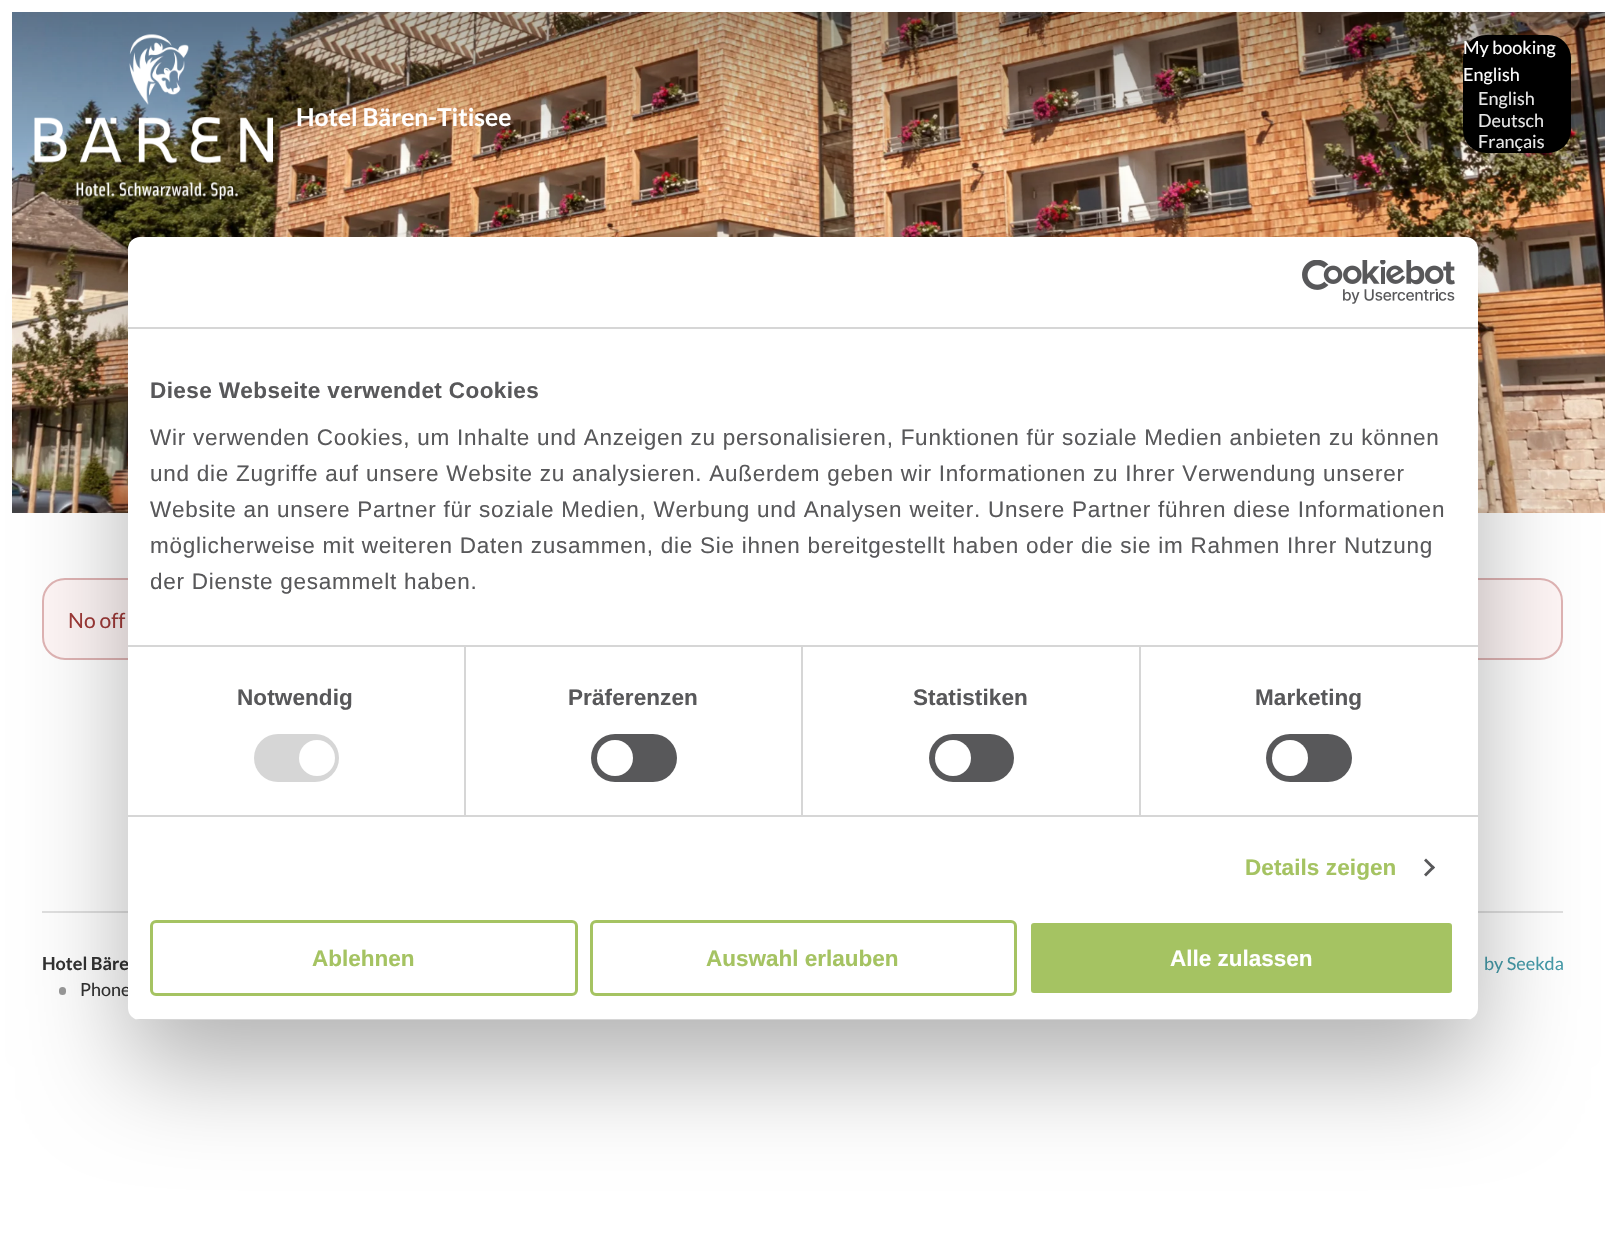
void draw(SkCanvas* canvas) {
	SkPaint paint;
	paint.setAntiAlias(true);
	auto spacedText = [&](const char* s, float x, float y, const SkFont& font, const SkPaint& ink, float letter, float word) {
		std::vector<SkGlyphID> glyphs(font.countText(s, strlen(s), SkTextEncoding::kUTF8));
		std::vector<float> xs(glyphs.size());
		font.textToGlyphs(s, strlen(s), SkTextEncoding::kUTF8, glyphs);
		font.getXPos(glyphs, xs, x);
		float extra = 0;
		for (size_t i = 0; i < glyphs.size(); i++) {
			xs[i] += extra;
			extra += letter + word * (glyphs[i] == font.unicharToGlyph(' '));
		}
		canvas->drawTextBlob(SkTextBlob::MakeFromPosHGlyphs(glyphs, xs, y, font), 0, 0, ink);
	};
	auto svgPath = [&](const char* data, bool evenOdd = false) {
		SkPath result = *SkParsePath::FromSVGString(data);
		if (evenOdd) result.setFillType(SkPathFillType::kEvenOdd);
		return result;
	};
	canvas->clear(0xffffffff);
	canvas->drawImageRect(SkImages::DeferredFromEncodedData(SkData::MakeFromFileName("img1.png")), SkRect::MakeXYWH(12, 12, 1593, 501), SkSamplingOptions());
	canvas->drawImageRect(SkImages::DeferredFromEncodedData(SkData::MakeFromFileName("img2.png")), SkRect::MakeXYWH(34, 34, 239, 166), SkSamplingOptions());
	SkFont f1(fontMgr->matchFamilyStyle("Lato", SkFontStyle::Bold()), 24.5);
	f1.setSubpixel(true);
	paint.setColor(0xffffffff);
	canvas->drawString("Hotel Bären-Titisee", 296, 126, f1, paint);
	paint.setColor(0xff000000);
	canvas->drawRoundRect(SkRect::MakeXYWH(1463, 35, 108, 118), 23, 23, paint);
	SkFont f2(fontMgr->matchFamilyStyle("Lato", SkFontStyle::Normal()), 18);
	f2.setSubpixel(true);
	paint.setColor(0xffffffff);
	canvas->drawString("My booking", 1463, 54, f2, paint);
	canvas->drawString("English", 1463, 81, f2, paint);
	paint.setColor(0xffe6e6e6);
	canvas->drawString("English", 1478, 105, f2, paint);
	canvas->drawString("Deutsch", 1478, 127, f2, paint);
	canvas->drawString("Français", 1478, 148, f2, paint);
	paint.setColor(0xfffff6f6);
	canvas->drawRoundRect(SkRect::MakeXYWH(43, 579, 1519, 80), 22, 22, paint);
	paint.setStroke(true);
	paint.setStrokeWidth(2);
	paint.setColor(0xffe0b4b4);
	canvas->drawRoundRect(SkRect::MakeXYWH(43, 579, 1519, 80), 22, 22, paint);
	SkFont f3(fontMgr->matchFamilyStyle("Lato", SkFontStyle::Normal()), 21);
	f3.setSubpixel(true);
	paint.setStroke(false);
	paint.setColor(0xff9f3a38);
	canvas->drawString("No off", 68, 628, f3, paint);
	paint.setColor(0xffe0e0e0);
	canvas->drawRect(SkRect::MakeXYWH(42, 911, 1521, 2), paint);
	SkFont f4(fontMgr->matchFamilyStyle("Lato", SkFontStyle::Bold()), 18);
	f4.setSubpixel(true);
	paint.setColor(0xff333333);
	canvas->drawString("Hotel Bäre", 42, 970, f4, paint);
	paint.setColor(0xff999999);
	canvas->drawRoundRect(SkRect::MakeXYWH(59, 987, 7, 8), 3.5, 3.5, paint);
	paint.setColor(0xff333333);
	canvas->drawString("Phone", 80, 996, f2, paint);
	paint.setColor(0xff459ba9);
	canvas->drawString("by Seekda", 1484, 970, f2, paint);
	paint.setColor(0x4d000000);
	paint.setMaskFilter(SkMaskFilter::MakeBlur(kNormal_SkBlurStyle, 51));
	canvas->drawRoundRect(SkRect::MakeXYWH(128, 285, 1350, 783), 12, 12, paint);
	paint.setMaskFilter(nullptr);
	paint.setColor(0xffffffff);
	canvas->drawRoundRect(SkRect::MakeXYWH(128, 237, 1350, 783), 12, 12, paint);
	paint.setColor(0xffd6d6d6);
	canvas->drawRect(SkRect::MakeXYWH(128, 327, 1350, 2), paint);
	canvas->drawImageRect(SkImages::DeferredFromEncodedData(SkData::MakeFromFileName("img3.png")), SkRect::MakeXYWH(1302, 260, 153, 44), SkSamplingOptions());
	canvas->drawRect(SkRect::MakeXYWH(128, 645, 1350, 2), paint);
	SkFont f5(fontMgr->matchFamilyStyle("Liberation Sans", SkFontStyle::Bold()), 22.5);
	f5.setSubpixel(true);
	paint.setColor(0xff58585a);
	spacedText("Diese Webseite verwendet Cookies", 150, 398, f5, paint, 0.4, 0);
	SkFont f6(fontMgr->matchFamilyStyle("Liberation Sans", SkFontStyle::Normal()), 22.5);
	f6.setSubpixel(true);
	spacedText("Wir verwenden Cookies, um Inhalte und Anzeigen zu personalisieren, Funktionen für soziale Medien anbieten zu können", 150, 445, f6, paint, 0.75, 0);
	spacedText("und die Zugriffe auf unsere Website zu analysieren. Außerdem geben wir Informationen zu Ihrer Verwendung unserer", 150, 481, f6, paint, 0.75, 0);
	spacedText("Website an unsere Partner für soziale Medien, Werbung und Analysen weiter. Unsere Partner führen diese Informationen", 150, 517, f6, paint, 0.75, 0);
	spacedText("möglicherweise mit weiteren Daten zusammen, die Sie ihnen bereitgestellt haben oder die sie im Rahmen Ihrer Nutzung", 150, 553, f6, paint, 0.75, 0);
	spacedText("der Dienste gesammelt haben.", 150, 589, f6, paint, 0.75, 0);
	paint.setColor(0xffd6d6d6);
	canvas->drawRect(SkRect::MakeXYWH(128, 815, 1350, 2), paint);
	canvas->drawRect(SkRect::MakeXYWH(464, 647, 2, 168), paint);
	paint.setColor(0xff58585a);
	spacedText("Notwendig", 237, 705, f5, paint, 0.1, 0);
	paint.setColor(0xffd6d6d6);
	canvas->drawRoundRect(SkRect::MakeXYWH(254, 734, 85, 48), 24, 24, paint);
	paint.setColor(0xffffffff);
	canvas->drawCircle(317, 758, 18, paint);
	paint.setColor(0xffd6d6d6);
	canvas->drawRect(SkRect::MakeXYWH(801, 647, 2, 168), paint);
	paint.setColor(0xff58585a);
	spacedText("Präferenzen", 568, 705, f5, paint, 0.1, 0);
	canvas->drawRoundRect(SkRect::MakeXYWH(591, 734, 86, 48), 24, 24, paint);
	paint.setColor(0xffffffff);
	canvas->drawCircle(615, 758, 18, paint);
	paint.setColor(0xffd6d6d6);
	canvas->drawRect(SkRect::MakeXYWH(1139, 647, 2, 168), paint);
	paint.setColor(0xff58585a);
	spacedText("Statistiken", 913, 705, f5, paint, 0.1, 0);
	canvas->drawRoundRect(SkRect::MakeXYWH(929, 734, 85, 48), 24, 24, paint);
	paint.setColor(0xffffffff);
	canvas->drawCircle(953, 758, 18, paint);
	paint.setColor(0xff58585a);
	spacedText("Marketing", 1255, 705, f5, paint, 0.1, 0);
	canvas->drawRoundRect(SkRect::MakeXYWH(1266, 734, 86, 48), 24, 24, paint);
	paint.setColor(0xffffffff);
	canvas->drawCircle(1290, 758, 18, paint);
	paint.setColor(0xffa5c362);
	spacedText("Details zeigen", 1245, 875, f5, paint, 0.1, 0);
	paint.setColor(0xff58585a);
	canvas->drawPath(svgPath("M1426 858.5L1435 867.5L1433 869.5L1424 860.5Z"), paint);
	canvas->drawPath(svgPath("M1433 865.5L1435 867.5L1426 876.5L1424 874.5Z"), paint);
	canvas->save();
	canvas->clipPath(svgPath("M140 237H1466C1472.5 237 1478 242.5 1478 249V1008C1478 1014.5 1472.5 1020 1466 1020H140C133.5 1020 128 1014.5 128 1008V249C128 242.5 133.5 237 140 237Z"), true);
	paint.setColor(0xffd6d6d6);
	canvas->drawRect(SkRect::MakeXYWH(128, 1019, 1350, 1), paint);
	canvas->restore();
	paint.setStroke(true);
	paint.setStrokeWidth(3);
	paint.setColor(0xffa5c362);
	canvas->drawRoundRect(SkRect::MakeXYWH(151.5, 921.5, 425, 73), 4.5, 4.5, paint);
	paint.setStroke(false);
	canvas->drawString("Ablehnen", 312, 966, f5, paint);
	paint.setStroke(true);
	canvas->drawRoundRect(SkRect::MakeXYWH(591.5, 921.5, 424, 73), 4.5, 4.5, paint);
	paint.setStroke(false);
	canvas->drawString("Auswahl erlauben", 706, 966, f5, paint);
	canvas->drawRoundRect(SkRect::MakeXYWH(1029.5, 921.5, 424, 73), 4.5, 4.5, paint);
	paint.setStroke(true);
	paint.setColor(0xffffffff);
	canvas->drawRoundRect(SkRect::MakeXYWH(1029.5, 921.5, 424, 73), 4.5, 4.5, paint);
	paint.setStroke(false);
	canvas->drawString("Alle zulassen", 1170, 966, f5, paint);
}
